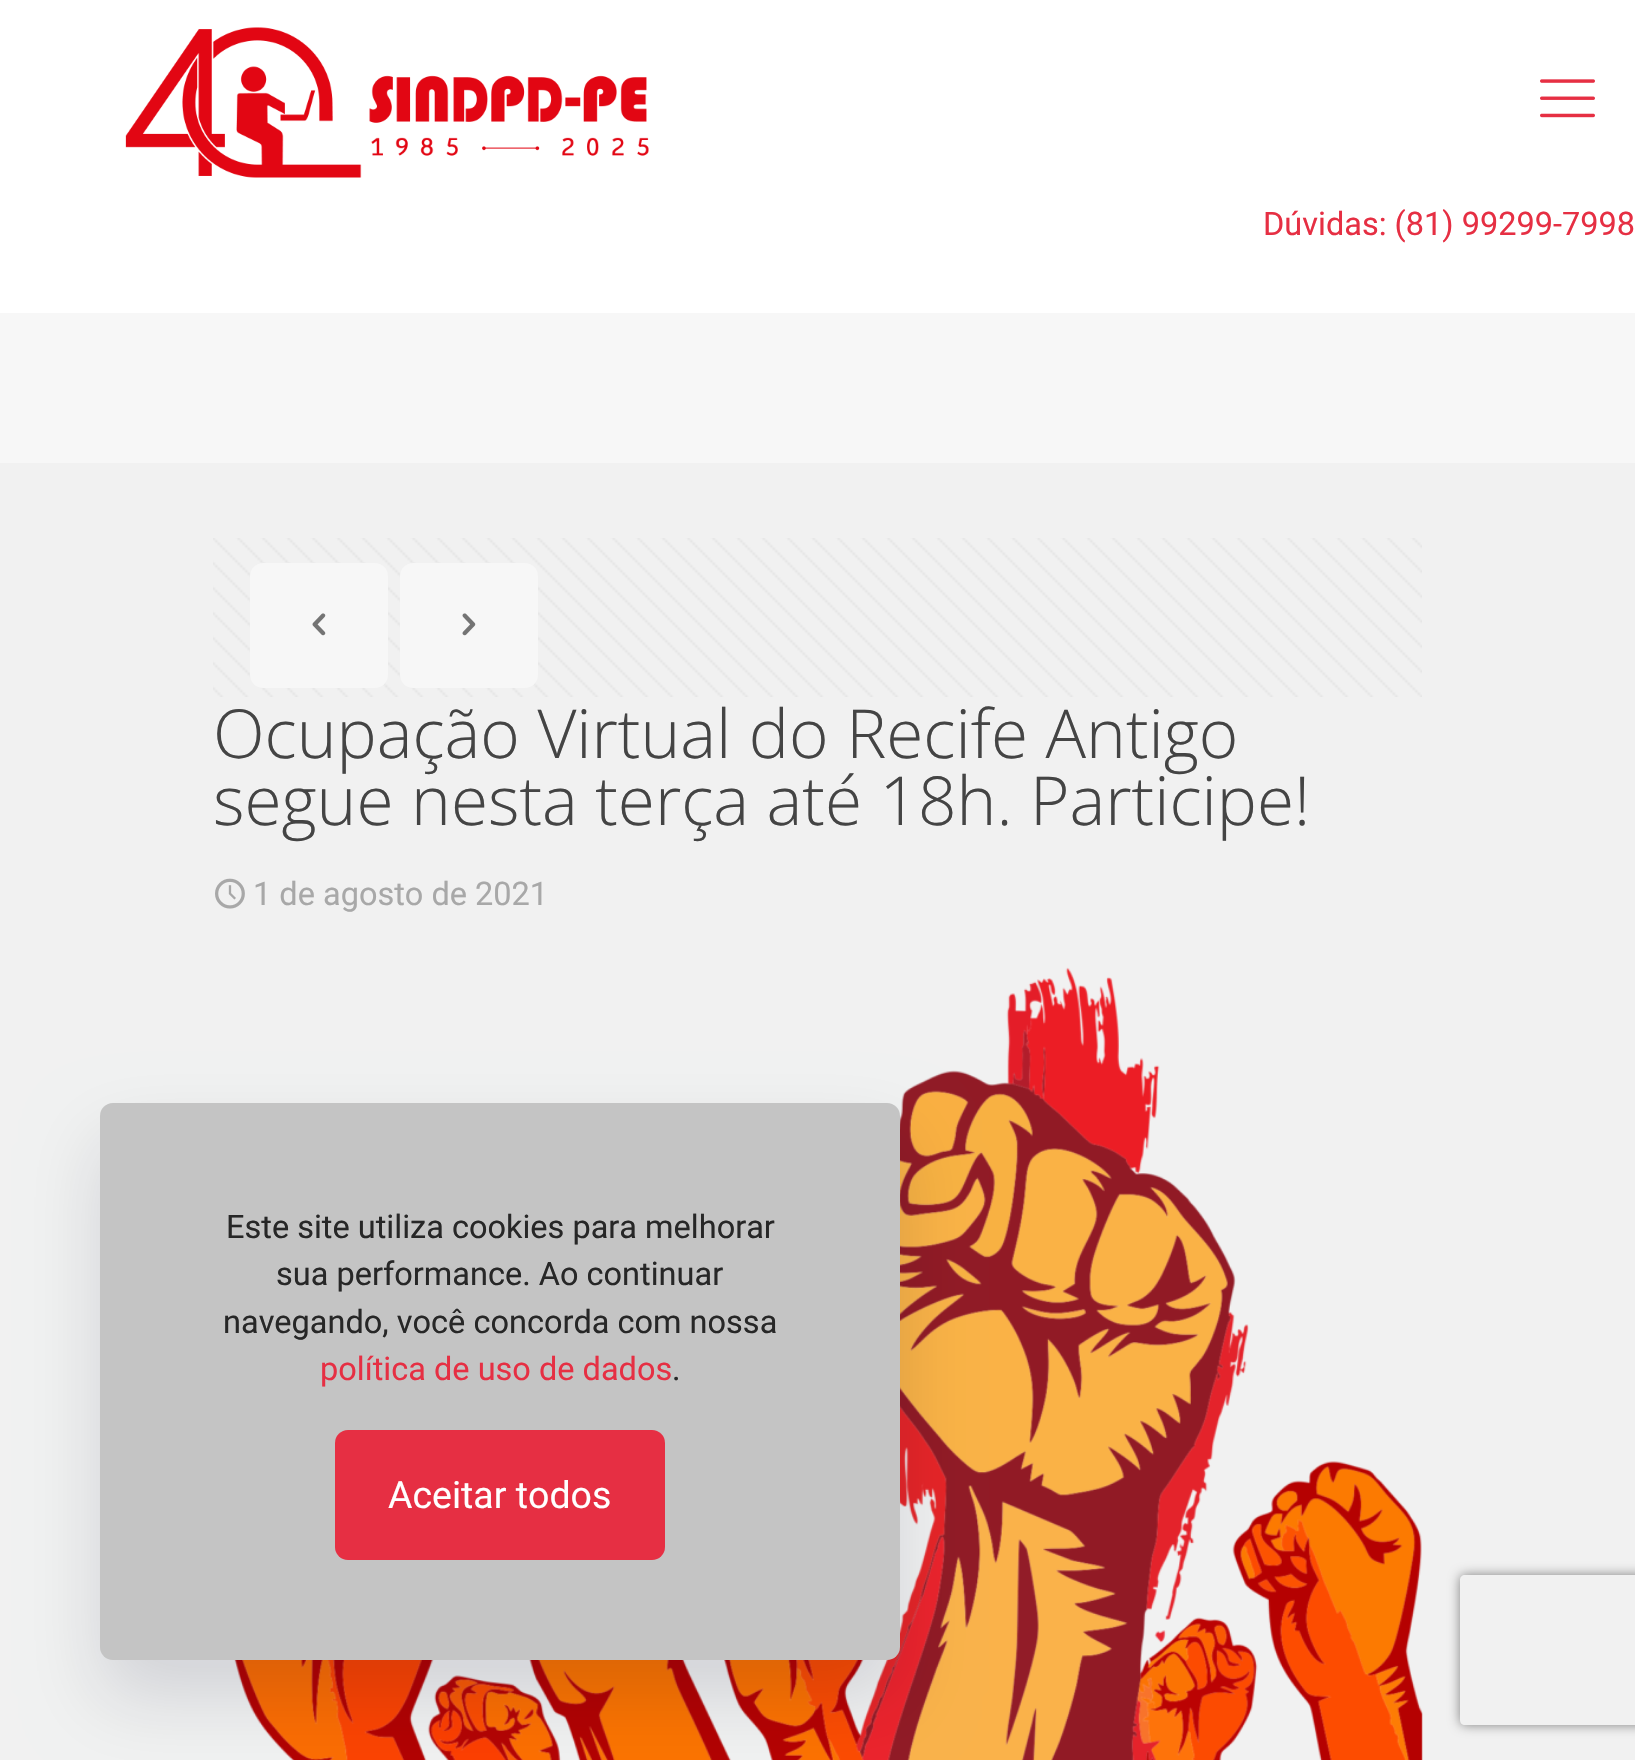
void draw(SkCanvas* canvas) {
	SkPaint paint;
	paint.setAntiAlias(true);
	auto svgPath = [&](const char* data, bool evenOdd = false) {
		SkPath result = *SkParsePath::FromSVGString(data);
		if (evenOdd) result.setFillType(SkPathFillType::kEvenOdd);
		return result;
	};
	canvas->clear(0xfff1f1f1);
	paint.setColor(0xffffffff);
	canvas->drawRect(SkRect::MakeXYWH(0, 0, 1635, 313), paint);
	canvas->drawImageRect(SkImages::DeferredFromEncodedData(SkData::MakeFromFileName("img1.png")), SkRect::MakeXYWH(125, 27, 524, 151), SkSamplingOptions());
	canvas->drawImageRect(SkImages::DeferredFromEncodedData(SkData::MakeFromFileName("img2.png")), SkRect::MakeXYWH(1540, 79, 55, 39), SkSamplingOptions());
	SkFont f1(fontMgr->matchFamilyStyle("Roboto", SkFontStyle::Normal()), 32.5);
	f1.setSubpixel(true);
	paint.setColor(0xffe62f43);
	canvas->drawString("Dúvidas: (81) 99299-7998", 1263, 235, f1, paint);
	paint.setColor(0xfff7f7f7);
	canvas->drawRect(SkRect::MakeXYWH(0, 313, 1635, 150), paint);
	canvas->drawImageRect(SkImages::DeferredFromEncodedData(SkData::MakeFromFileName("img3.png")), SkRect::MakeXYWH(213, 538, 1209, 159), SkSamplingOptions());
	canvas->drawRoundRect(SkRect::MakeXYWH(250, 563, 138, 125), 13, 13, paint);
	canvas->drawImageRect(SkImages::DeferredFromEncodedData(SkData::MakeFromFileName("img4.png")), SkRect::MakeXYWH(312, 613, 14, 23), SkSamplingOptions());
	canvas->drawRoundRect(SkRect::MakeXYWH(400, 563, 138, 125), 13, 13, paint);
	canvas->drawImageRect(SkImages::DeferredFromEncodedData(SkData::MakeFromFileName("img5.png")), SkRect::MakeXYWH(462, 613, 14, 23), SkSamplingOptions());
	SkFont f2(fontMgr->matchFamilyStyle("Open Sans", SkFontStyle(300, SkFontStyle::kNormal_Width, SkFontStyle::kUpright_Slant)), 67.5);
	f2.setSubpixel(true);
	paint.setColor(0xff444444);
	canvas->drawString("Ocupação Virtual do Recife Antigo", 213, 758, f2, paint);
	canvas->drawString("segue nesta terça até 18h. Participe!", 213, 825, f2, paint);
	canvas->drawImageRect(SkImages::DeferredFromEncodedData(SkData::MakeFromFileName("img6.png")), SkRect::MakeXYWH(215, 878, 30, 31), SkSamplingOptions());
	paint.setColor(0xffa8a8a8);
	canvas->drawString("1 de agosto de 2021", 253, 905, f1, paint);
	canvas->drawImageRect(SkImages::DeferredFromEncodedData(SkData::MakeFromFileName("img7.png")), SkRect::MakeXYWH(234, 967, 1189, 793), SkSamplingOptions());
	paint.setColor(0x21010727);
	paint.setMaskFilter(SkMaskFilter::MakeBlur(kNormal_SkBlurStyle, 37.5));
	canvas->drawRoundRect(SkRect::MakeXYWH(100, 1140, 800, 558), 13, 13, paint);
	paint.setMaskFilter(nullptr);
	paint.setColor(0xffc4c4c4);
	canvas->drawRoundRect(SkRect::MakeXYWH(100, 1103, 800, 557), 13, 13, paint);
	paint.setColor(0xff272727);
	canvas->drawString("Este site utiliza cookies para melhorar", 226, 1238, f1, paint);
	canvas->drawString("sua performance. Ao continuar", 276, 1285, f1, paint);
	canvas->drawString("navegando, você concorda com nossa", 223, 1333, f1, paint);
	paint.setColor(0xffe62f43);
	canvas->drawString("política de uso de dados", 320, 1380, f1, paint);
	paint.setColor(0xff272727);
	canvas->drawString(".", 672, 1380, f1, paint);
	paint.setColor(0xffe62f43);
	canvas->drawRoundRect(SkRect::MakeXYWH(335, 1430, 330, 130), 13, 13, paint);
	SkFont f3(fontMgr->matchFamilyStyle("Roboto", SkFontStyle::Normal()), 37.5);
	f3.setSubpixel(true);
	paint.setColor(0xffffffff);
	canvas->drawString("Aceitar todos", 388, 1508, f3, paint);
	canvas->save();
	canvas->clipPath(svgPath("M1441 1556H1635V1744H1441ZM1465 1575H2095C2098 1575 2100 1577 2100 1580V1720C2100 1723 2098 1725 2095 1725H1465C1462 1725 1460 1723 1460 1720V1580C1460 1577 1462 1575 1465 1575Z", true), true);
	paint.setColor(0xff808080);
	paint.setMaskFilter(SkMaskFilter::MakeBlur(kNormal_SkBlurStyle, 6));
	canvas->drawRoundRect(SkRect::MakeXYWH(1460, 1575, 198, 150), 5, 5, paint);
	paint.setMaskFilter(nullptr);
	canvas->restore();
}
